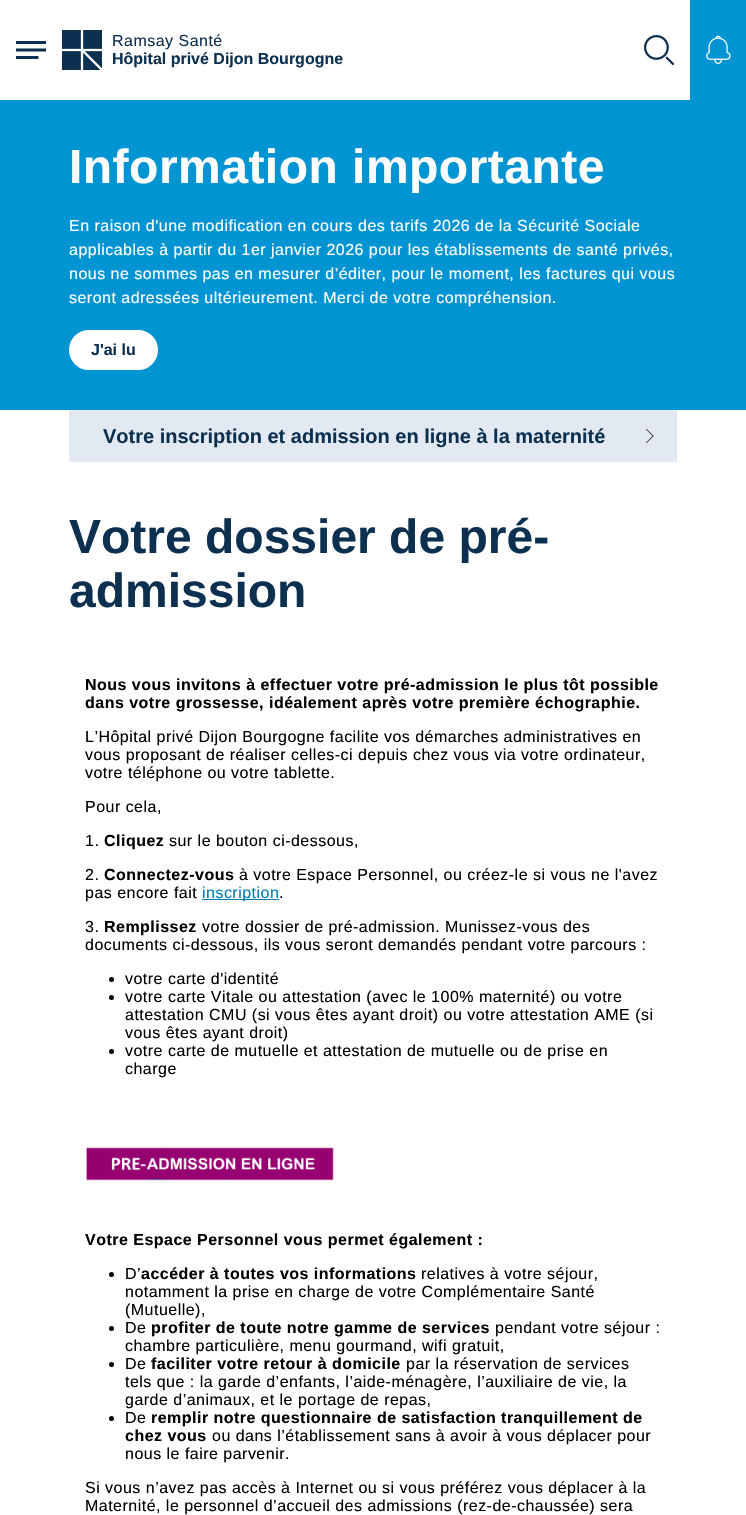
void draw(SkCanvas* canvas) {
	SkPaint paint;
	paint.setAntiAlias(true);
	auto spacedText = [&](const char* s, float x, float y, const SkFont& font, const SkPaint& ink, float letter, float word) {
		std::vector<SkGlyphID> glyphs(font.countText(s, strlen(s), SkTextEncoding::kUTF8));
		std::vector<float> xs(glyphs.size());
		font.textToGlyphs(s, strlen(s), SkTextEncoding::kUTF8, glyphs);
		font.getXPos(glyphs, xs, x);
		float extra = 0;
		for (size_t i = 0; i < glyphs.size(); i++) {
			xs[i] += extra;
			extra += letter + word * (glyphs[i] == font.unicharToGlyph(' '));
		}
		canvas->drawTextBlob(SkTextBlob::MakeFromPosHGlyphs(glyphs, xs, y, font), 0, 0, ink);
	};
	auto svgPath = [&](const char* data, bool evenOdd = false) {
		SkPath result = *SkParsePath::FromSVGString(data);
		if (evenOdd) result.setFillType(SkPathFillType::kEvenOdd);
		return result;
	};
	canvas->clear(0xffffffff);
	canvas->drawImageRect(SkImages::DeferredFromEncodedData(SkData::MakeFromFileName("img1.png")), SkRect::MakeXYWH(16, 41, 30, 18), SkSamplingOptions());
	canvas->drawImageRect(SkImages::DeferredFromEncodedData(SkData::MakeFromFileName("img2.png")), SkRect::MakeXYWH(62, 30, 40, 40), SkSamplingOptions());
	SkFont f1(fontMgr->matchFamilyStyle("Liberation Sans", SkFontStyle::Normal()), 16);
	f1.setSubpixel(true);
	paint.setColor(0xff0d3050);
	spacedText("Ramsay Santé", 112, 46, f1, paint, 0.48, 0);
	SkFont f2(fontMgr->matchFamilyStyle("Liberation Sans", SkFontStyle::Bold()), 16);
	f2.setSubpixel(true);
	canvas->drawString("Hôpital privé Dijon Bourgogne", 112, 64, f2, paint);
	canvas->drawImageRect(SkImages::DeferredFromEncodedData(SkData::MakeFromFileName("img3.png")), SkRect::MakeXYWH(644, 35, 30, 30), SkSamplingOptions());
	paint.setColor(0xff0094d2);
	canvas->drawRect(SkRect::MakeXYWH(690, 0, 56, 100), paint);
	canvas->drawImageRect(SkImages::DeferredFromEncodedData(SkData::MakeFromFileName("img4.png")), SkRect::MakeXYWH(706, 35, 25, 29), SkSamplingOptions());
	paint.setColor(0xffe3e9f2);
	canvas->drawRect(SkRect::MakeXYWH(69, 410, 608, 52), paint);
	SkFont f3(fontMgr->matchFamilyStyle("Liberation Sans", SkFontStyle::Bold()), 20);
	f3.setSubpixel(true);
	paint.setColor(0xff0d3050);
	canvas->drawString("Votre inscription et admission en ligne à la maternité", 103, 443, f3, paint);
	canvas->drawImageRect(SkImages::DeferredFromEncodedData(SkData::MakeFromFileName("img5.png")), SkRect::MakeXYWH(646, 429, 8, 14), SkSamplingOptions());
	SkFont f4(fontMgr->matchFamilyStyle("Liberation Sans", SkFontStyle::Bold()), 48);
	f4.setSubpixel(true);
	canvas->drawString("Votre dossier de pré-", 69, 553, f4, paint);
	canvas->save();
	canvas->clipRect(SkRect::MakeXYWH(0, 100, 746, 310));
	paint.setColor(0xff0094d2);
	canvas->drawPath(svgPath("M-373 100H746V565H92C-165 565-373 357-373 100Z"), paint);
	canvas->restore();
	paint.setColor(0xffffffff);
	spacedText("Information importante", 69, 183, f4, paint, 0.48, 0);
	spacedText("En raison d'une modification en cours des tarifs 2026 de la Sécurité Sociale", 69, 231, f1, paint, 0.48, 0);
	spacedText("applicables à partir du 1er janvier 2026 pour les établissements de santé privés,", 69, 255, f1, paint, 0.48, 0);
	spacedText("nous ne sommes pas en mesurer d’éditer, pour le moment, les factures qui vous", 69, 279, f1, paint, 0.48, 0);
	spacedText("seront adressées ultérieurement. Merci de votre compréhension.", 69, 303, f1, paint, 0.48, 0);
	canvas->drawRoundRect(SkRect::MakeXYWH(70, 331, 87, 38), 19, 19, paint);
	paint.setStroke(true);
	paint.setStrokeWidth(2);
	canvas->drawRoundRect(SkRect::MakeXYWH(70, 331, 87, 38), 19, 19, paint);
	paint.setStroke(false);
	paint.setColor(0xff0d3050);
	canvas->drawString("J'ai lu", 91, 355, f2, paint);
	paint.setColor(0xff000000);
	spacedText("Nous vous invitons à effectuer votre pré-admission le plus tôt possible", 85, 690, f2, paint, 0.48, 0);
	spacedText("dans votre grossesse, idéalement après votre première échographie.", 85, 708, f2, paint, 0.48, 0);
	spacedText("L’Hôpital privé Dijon Bourgogne facilite vos démarches administratives en", 85, 742, f1, paint, 0.48, 0);
	spacedText("vous proposant de réaliser celles-ci depuis chez vous via votre ordinateur,", 85, 760, f1, paint, 0.48, 0);
	spacedText("votre téléphone ou votre tablette.", 85, 778, f1, paint, 0.48, 0);
	spacedText("Pour cela,", 85, 812, f1, paint, 0.48, 0);
	spacedText("1.", 85, 846, f1, paint, 0.48, 0);
	spacedText("Cliquez", 104, 846, f2, paint, 0.48, 0);
	spacedText("sur le bouton ci-dessous,", 169, 846, f1, paint, 0.48, 0);
	spacedText("2.", 85, 880, f1, paint, 0.48, 0);
	spacedText("Connectez-vous", 104, 880, f2, paint, 0.48, 0);
	spacedText("à votre Espace Personnel, ou créez-le si vous ne l'avez", 239, 880, f1, paint, 0.48, 0);
	spacedText("pas encore fait", 85, 898, f1, paint, 0.48, 0);
	paint.setColor(0xff007db3);
	canvas->drawRect(SkRect::MakeXYWH(202, 899, 77, 1), paint);
	spacedText("inscription", 202, 898, f1, paint, 0.48, 0);
	paint.setColor(0xff000000);
	spacedText(".", 279, 898, f1, paint, 0.48, 0);
	spacedText("3.", 85, 932, f1, paint, 0.48, 0);
	spacedText("Remplissez", 104, 932, f2, paint, 0.48, 0);
	spacedText("votre dossier de pré-admission. Munissez-vous des", 202, 932, f1, paint, 0.48, 0);
	spacedText("documents ci-dessous, ils vous seront demandés pendant votre parcours :", 85, 950, f1, paint, 0.48, 0);
	canvas->drawCircle(111.5, 979.5, 2.5, paint);
	spacedText("votre carte d'identité", 125, 984, f1, paint, 0.48, 0);
	canvas->drawCircle(111.5, 997.5, 2.5, paint);
	spacedText("votre carte Vitale ou attestation (avec le 100% maternité) ou votre", 125, 1002, f1, paint, 0.48, 0);
	spacedText("attestation CMU (si vous êtes ayant droit) ou votre attestation AME (si", 125, 1020, f1, paint, 0.48, 0);
	spacedText("vous êtes ayant droit)", 125, 1038, f1, paint, 0.48, 0);
	canvas->drawCircle(111.5, 1051.5, 2.5, paint);
	spacedText("votre carte de mutuelle et attestation de mutuelle ou de prise en", 125, 1056, f1, paint, 0.48, 0);
	spacedText("charge", 125, 1074, f1, paint, 0.48, 0);
	canvas->drawImageRect(SkImages::DeferredFromEncodedData(SkData::MakeFromFileName("img6.png")), SkRect::MakeXYWH(86, 1147, 248, 34), SkSamplingOptions());
	spacedText("Votre Espace Personnel vous permet également :", 85, 1245, f2, paint, 0.48, 0);
	canvas->drawCircle(111.5, 1274.5, 2.5, paint);
	spacedText("D’", 125, 1279, f1, paint, 0.48, 0);
	spacedText("accéder à toutes vos informations", 141, 1279, f2, paint, 0.48, 0);
	spacedText("relatives à votre séjour,", 421, 1279, f1, paint, 0.48, 0);
	spacedText("notamment la prise en charge de votre Complémentaire Santé", 125, 1297, f1, paint, 0.48, 0);
	spacedText("(Mutuelle),", 125, 1315, f1, paint, 0.48, 0);
	canvas->drawCircle(111.5, 1328.5, 2.5, paint);
	spacedText("De", 125, 1333, f1, paint, 0.48, 0);
	spacedText("profiter de toute notre gamme de services", 151, 1333, f2, paint, 0.48, 0);
	spacedText("pendant votre séjour :", 495, 1333, f1, paint, 0.48, 0);
	spacedText("chambre particulière, menu gourmand, wifi gratuit,", 125, 1351, f1, paint, 0.48, 0);
	canvas->drawCircle(111.5, 1364.5, 2.5, paint);
	spacedText("De", 125, 1369, f1, paint, 0.48, 0);
	spacedText("faciliter votre retour à domicile", 151, 1369, f2, paint, 0.48, 0);
	spacedText("par la réservation de services", 406, 1369, f1, paint, 0.48, 0);
	spacedText("tels que : la garde d’enfants, l’aide-ménagère, l’auxiliaire de vie, la", 125, 1387, f1, paint, 0.48, 0);
	spacedText("garde d’animaux, et le portage de repas,", 125, 1405, f1, paint, 0.48, 0);
	canvas->drawCircle(111.5, 1418.5, 2.5, paint);
	spacedText("De", 125, 1423, f1, paint, 0.48, 0);
	spacedText("remplir notre questionnaire de satisfaction tranquillement de", 151, 1423, f2, paint, 0.48, 0);
	spacedText("chez vous", 125, 1441, f2, paint, 0.48, 0);
	spacedText("ou dans l’établissement sans à avoir à vous déplacer pour", 212, 1441, f1, paint, 0.48, 0);
	spacedText("nous le faire parvenir.", 125, 1459, f1, paint, 0.48, 0);
	spacedText("Si vous n’avez pas accès à Internet ou si vous préférez vous déplacer à la", 85, 1493, f1, paint, 0.48, 0);
	spacedText("Maternité, le personnel d’accueil des admissions (rez-de-chaussée) sera", 85, 1511, f1, paint, 0.48, 0);
	paint.setColor(0xff0d3050);
	canvas->drawString("admission", 69, 607, f4, paint);
}
